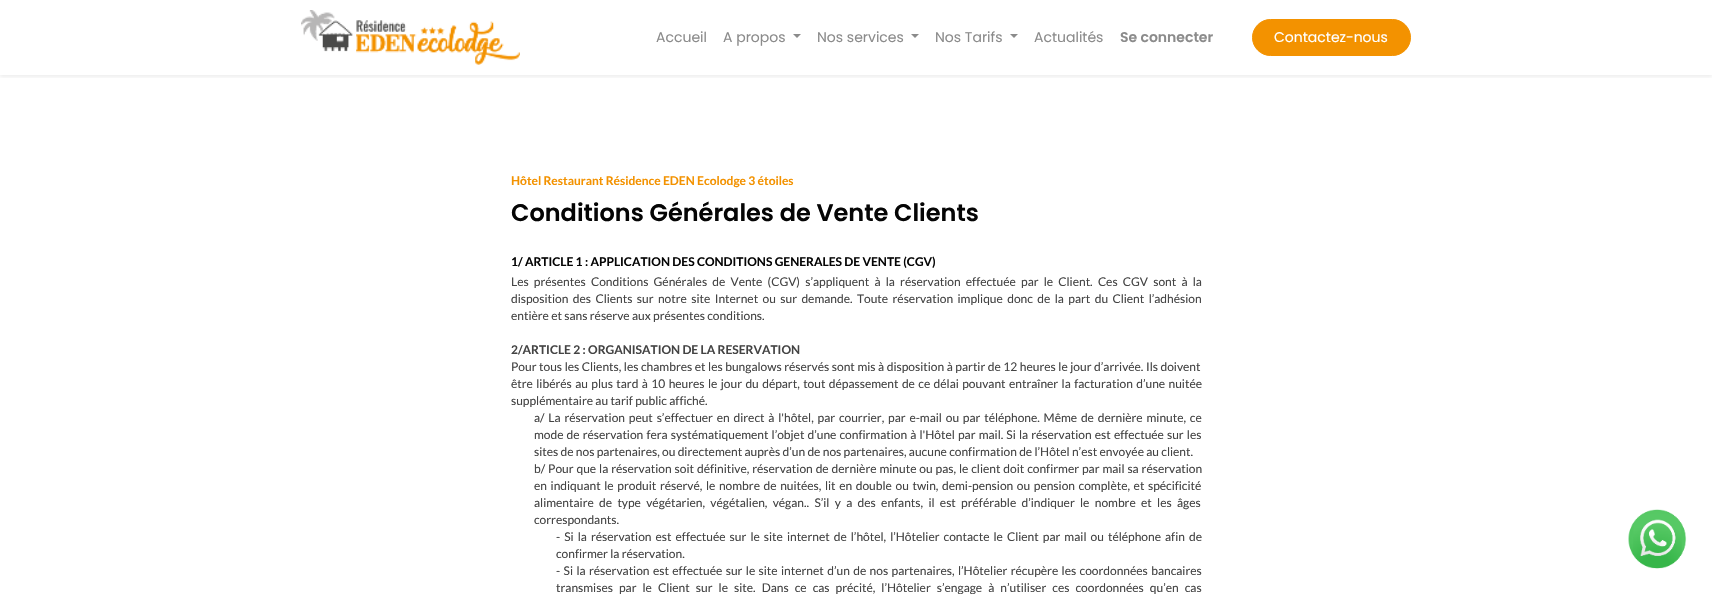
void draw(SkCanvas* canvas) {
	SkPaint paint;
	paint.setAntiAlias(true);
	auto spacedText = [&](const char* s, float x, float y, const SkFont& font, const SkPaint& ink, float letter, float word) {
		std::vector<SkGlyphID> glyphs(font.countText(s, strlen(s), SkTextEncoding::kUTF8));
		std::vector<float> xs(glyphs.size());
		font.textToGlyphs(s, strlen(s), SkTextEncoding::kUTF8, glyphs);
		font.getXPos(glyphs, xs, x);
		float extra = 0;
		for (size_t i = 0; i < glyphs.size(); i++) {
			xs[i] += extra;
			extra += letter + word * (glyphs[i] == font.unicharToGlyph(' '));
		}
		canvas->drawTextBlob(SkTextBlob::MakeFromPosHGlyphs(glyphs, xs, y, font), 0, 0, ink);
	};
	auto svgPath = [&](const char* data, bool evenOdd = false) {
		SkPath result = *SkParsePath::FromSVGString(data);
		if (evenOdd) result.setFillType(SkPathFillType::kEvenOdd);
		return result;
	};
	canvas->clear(0xffffffff);
	canvas->save();
	canvas->clipRect(SkRect::MakeXYWH(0, 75, 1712, 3));
	paint.setColor(0x12000000);
	paint.setMaskFilter(SkMaskFilter::MakeBlur(kNormal_SkBlurStyle, 2));
	canvas->drawRect(SkRect::MakeXYWH(0, 2, 1712, 75), paint);
	paint.setMaskFilter(nullptr);
	canvas->restore();
	canvas->drawImageRect(SkImages::DeferredFromEncodedData(SkData::MakeFromFileName("img1.png")), SkRect::MakeXYWH(301, 10, 219, 55), SkSamplingOptions());
	SkFont f1(fontMgr->matchFamilyStyle("Poppins", SkFontStyle::Normal()), 14);
	f1.setSubpixel(true);
	paint.setColor(0xff8b8b8b);
	canvas->drawString("Accueil", 656, 42, f1, paint);
	canvas->drawString("A propos", 723, 42, f1, paint);
	canvas->drawPath(svgPath("M793 34H801L797 38Z"), paint);
	canvas->drawString("Nos services", 817, 42, f1, paint);
	canvas->drawPath(svgPath("M911 34H919L915 38Z"), paint);
	canvas->drawString("Nos Tarifs", 935, 42, f1, paint);
	canvas->drawPath(svgPath("M1010 34H1018L1014 38Z"), paint);
	canvas->drawString("Actualités", 1034, 42, f1, paint);
	SkFont f2(fontMgr->matchFamilyStyle("Poppins", SkFontStyle(600, SkFontStyle::kNormal_Width, SkFontStyle::kUpright_Slant)), 14);
	f2.setSubpixel(true);
	canvas->drawString("Se connecter", 1120, 42, f2, paint);
	paint.setColor(0xfff39200);
	canvas->drawRoundRect(SkRect::MakeXYWH(1252.5, 19.5, 158, 36), 18, 18, paint);
	paint.setStroke(true);
	paint.setStrokeWidth(1);
	canvas->drawRoundRect(SkRect::MakeXYWH(1252.5, 19.5, 158, 36), 18, 18, paint);
	paint.setStroke(false);
	paint.setColor(0xffffffff);
	canvas->drawString("Contactez-nous", 1274, 42, f1, paint);
	SkFont f3(fontMgr->matchFamilyStyle("Lato", SkFontStyle::Bold()), 12);
	f3.setSubpixel(true);
	paint.setColor(0xfff39200);
	canvas->drawString("Hôtel Restaurant Résidence EDEN Ecolodge 3 étoiles", 511, 185, f3, paint);
	SkFont f4(fontMgr->matchFamilyStyle("Poppins", SkFontStyle(600, SkFontStyle::kNormal_Width, SkFontStyle::kUpright_Slant)), 24);
	f4.setSubpixel(true);
	paint.setColor(0xff050505);
	canvas->drawString("Conditions Générales de Vente Clients", 511, 221, f4, paint);
	canvas->drawString("1/ ARTICLE 1 : APPLICATION DES CONDITIONS GENERALES DE VENTE (CGV)", 511, 266, f3, paint);
	SkFont f5(fontMgr->matchFamilyStyle("Lato", SkFontStyle::Normal()), 12);
	f5.setSubpixel(true);
	paint.setColor(0xff444444);
	spacedText("Les présentes Conditions Générales de Vente (CGV) s’appliquent à la réservation effectuée par le Client. Ces CGV sont à la", 511, 286, f5, paint, 0, 2.9);
	spacedText("disposition des Clients sur notre site Internet ou sur demande. Toute réservation implique donc de la part du Client l’adhésion", 511, 303, f5, paint, 0, 2.1);
	canvas->drawString("entière et sans réserve aux présentes conditions.", 511, 320, f5, paint);
	canvas->drawString("2/ARTICLE 2 : ORGANISATION DE LA RESERVATION", 511, 354, f3, paint);
	spacedText("Pour tous les Clients, les chambres et les bungalows réservés sont mis à disposition à partir de 12 heures le jour d’arrivée. Ils doivent", 511, 371, f5, paint, 0, 0.25);
	spacedText("être libérés au plus tard à 10 heures le jour du départ, tout dépassement de ce délai pouvant entraîner la facturation d’une nuitée", 511, 388, f5, paint, 0, 1.1);
	canvas->drawString("supplémentaire au tarif public affiché.", 511, 405, f5, paint);
	spacedText("a/ La réservation peut s’effectuer en direct à l'hôtel, par courrier, par e-mail ou par téléphone. Même de dernière minute, ce", 534, 422, f5, paint, 0, 1.5);
	spacedText("mode de réservation fera systématiquement l’objet d’une confirmation à l'Hôtel par mail. Si la réservation est effectuée sur les", 534, 439, f5, paint, 0, 0.8);
	canvas->drawString("sites de nos partenaires, ou directement auprès d’un de nos partenaires, aucune confirmation de l’Hôtel n’est envoyée au client.", 534, 456, f5, paint);
	spacedText("b/ Pour que la réservation soit définitive, réservation de dernière minute ou pas, le client doit confirmer par mail sa réservation", 534, 473, f5, paint, 0, 0.6);
	spacedText("en indiquant le produit réservé, le nombre de nuitées, lit en double ou twin, demi-pension ou pension complète, et spécificité", 534, 490, f5, paint, 0, 1.3);
	spacedText("alimentaire de type végétarien, végétalien, végan.. S’il y a des enfants, il est préférable d’indiquer le nombre et les âges", 534, 507, f5, paint, 0, 3);
	canvas->drawString("correspondants.", 534, 524, f5, paint);
	spacedText("- Si la réservation est effectuée sur le site internet de l’hôtel, l’Hôtelier contacte le Client par mail ou téléphone afin de", 556, 541, f5, paint, 0, 1.75);
	canvas->drawString("confirmer la réservation.", 556, 558, f5, paint);
	spacedText("- Si la réservation est effectuée sur le site internet d’un de nos partenaires, l’Hôtelier récupère les coordonnées bancaires", 556, 575, f5, paint, 0, 1.1);
	spacedText("transmises par le Client sur le site. Dans ce cas précité, l’Hôtelier s’engage à n’utiliser ces coordonnées qu’en cas", 556, 592, f5, paint, 0, 3.75);
	canvas->drawImageRect(SkImages::DeferredFromEncodedData(SkData::MakeFromFileName("img2.png")), SkRect::MakeXYWH(1628, 509, 59, 60), SkSamplingOptions());
}
